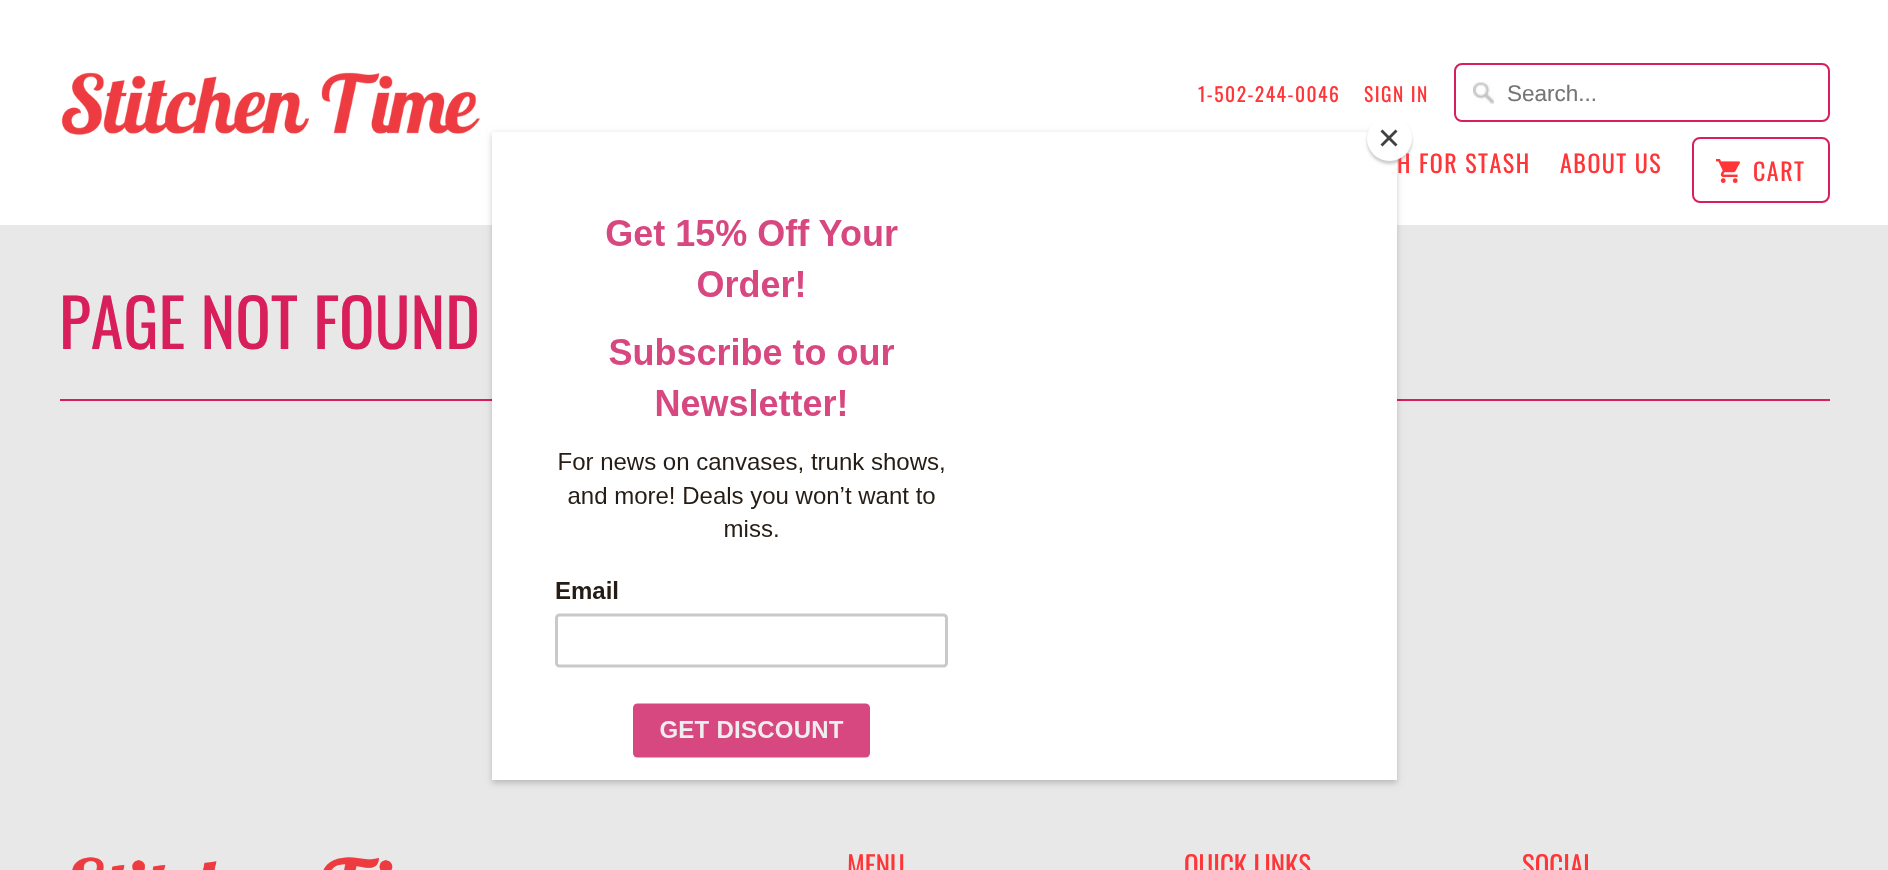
void draw(SkCanvas* canvas) {
	SkPaint paint;
	paint.setAntiAlias(true);
	auto spacedText = [&](const char* s, float x, float y, const SkFont& font, const SkPaint& ink, float letter, float word) {
		std::vector<SkGlyphID> glyphs(font.countText(s, strlen(s), SkTextEncoding::kUTF8));
		std::vector<float> xs(glyphs.size());
		font.textToGlyphs(s, strlen(s), SkTextEncoding::kUTF8, glyphs);
		font.getXPos(glyphs, xs, x);
		float extra = 0;
		for (size_t i = 0; i < glyphs.size(); i++) {
			xs[i] += extra;
			extra += letter + word * (glyphs[i] == font.unicharToGlyph(' '));
		}
		canvas->drawTextBlob(SkTextBlob::MakeFromPosHGlyphs(glyphs, xs, y, font), 0, 0, ink);
	};
	auto svgPath = [&](const char* data, bool evenOdd = false) {
		SkPath result = *SkParsePath::FromSVGString(data);
		if (evenOdd) result.setFillType(SkPathFillType::kEvenOdd);
		return result;
	};
	canvas->clear(0xffe8e8e8);
	paint.setColor(0xffd81e5b);
	canvas->drawRect(SkRect::MakeXYWH(60, 399, 1770, 2), paint);
	SkFont f1(fontMgr->matchFamilyStyle("Oswald", SkFontStyle::Normal()), 66);
	f1.setSubpixel(true);
	canvas->drawString("PAGE NOT FOUND", 59, 349, f1, paint);
	paint.setColor(0xffffffff);
	canvas->drawRect(SkRect::MakeXYWH(0, 0, 1888, 225), paint);
	paint.setColor(0x33000000);
	paint.setMaskFilter(SkMaskFilter::MakeBlur(kNormal_SkBlurStyle, 3));
	canvas->drawRect(SkRect::MakeXYWH(492, 134, 905, 649), paint);
	paint.setMaskFilter(nullptr);
	canvas->drawImageRect(SkImages::DeferredFromEncodedData(SkData::MakeFromFileName("img1.png")), SkRect::MakeXYWH(492, 132, 905, 648), SkSamplingOptions());
	paint.setMaskFilter(SkMaskFilter::MakeBlur(kNormal_SkBlurStyle, 1.5));
	canvas->drawRoundRect(SkRect::MakeXYWH(1367, 119, 45, 45), 22.5, 22.5, paint);
	paint.setMaskFilter(nullptr);
	SkFont f2(fontMgr->matchFamilyStyle("Oswald", SkFontStyle::Normal()), 24);
	f2.setSubpixel(true);
	paint.setColor(0xffff3538);
	spacedText("H FOR STASH", 1397, 173, f2, paint, 1.5, 0);
	paint.setColor(0xffffffff);
	canvas->drawCircle(1389.5, 138.5, 22.5, paint);
	paint.setColor(0xff414141);
	canvas->drawPath(svgPath("M1395.5 129.5L1397.5 131.5L1382.5 146.5L1380.5 144.5Z"), paint);
	canvas->drawPath(svgPath("M1380.5 131.5L1382.5 129.5L1397.5 144.5L1395.5 146.5Z"), paint);
	canvas->drawImageRect(SkImages::DeferredFromEncodedData(SkData::MakeFromFileName("img2.png")), SkRect::MakeXYWH(61, 72, 419, 63), SkSamplingOptions());
	SkFont f3(fontMgr->matchFamilyStyle("Oswald", SkFontStyle::Normal()), 19.5);
	f3.setSubpixel(true);
	paint.setColor(0xffff3538);
	spacedText("1-502-244-0046", 1198, 102, f3, paint, 1.5, 0);
	spacedText("SIGN IN", 1364, 102, f3, paint, 1.5, 0);
	canvas->drawImageRect(SkImages::DeferredFromEncodedData(SkData::MakeFromFileName("img3.png")), SkRect::MakeXYWH(1473, 82, 21, 22), SkSamplingOptions());
	paint.setStroke(true);
	paint.setStrokeWidth(2);
	paint.setColor(0xffd81e5b);
	canvas->drawRoundRect(SkRect::MakeXYWH(1455, 64, 374, 57), 7, 7, paint);
	SkFont f4(fontMgr->matchFamilyStyle("Liberation Sans", SkFontStyle::Normal()), 22.5);
	f4.setSubpixel(true);
	paint.setStroke(false);
	paint.setColor(0xff757575);
	canvas->drawString("Search...", 1507, 101, f4, paint);
	paint.setColor(0xffff3538);
	spacedText("ABOUT US", 1560, 173, f2, paint, 1.5, 0);
	paint.setStroke(true);
	paint.setColor(0xffd81e5b);
	canvas->drawRoundRect(SkRect::MakeXYWH(1693, 138, 136, 64), 7, 7, paint);
	canvas->drawImageRect(SkImages::DeferredFromEncodedData(SkData::MakeFromFileName("img4.png")), SkRect::MakeXYWH(1716, 159, 24, 24), SkSamplingOptions());
	paint.setStroke(false);
	paint.setColor(0xffff3538);
	spacedText("CART", 1753, 181, f2, paint, 1.5, 0);
	canvas->drawImageRect(SkImages::DeferredFromEncodedData(SkData::MakeFromFileName("img5.png")), SkRect::MakeXYWH(72, 857, 321, 13), SkSamplingOptions());
	SkFont f5(fontMgr->matchFamilyStyle("Oswald", SkFontStyle::Normal()), 27);
	f5.setSubpixel(true);
	canvas->drawString("MENU", 847, 876, f5, paint);
	canvas->drawString("QUICK LINKS", 1184, 876, f5, paint);
	canvas->drawString("SOCIAL", 1522, 876, f5, paint);
}
